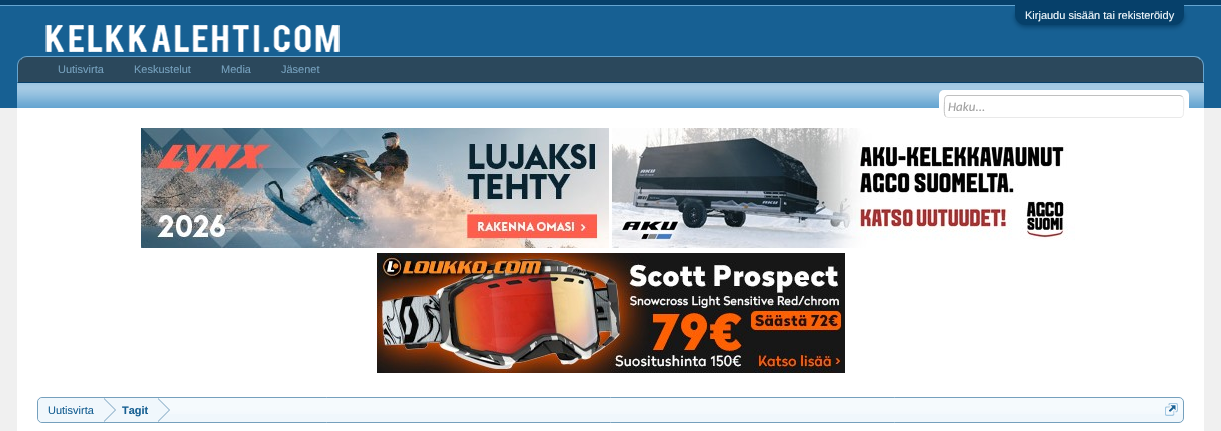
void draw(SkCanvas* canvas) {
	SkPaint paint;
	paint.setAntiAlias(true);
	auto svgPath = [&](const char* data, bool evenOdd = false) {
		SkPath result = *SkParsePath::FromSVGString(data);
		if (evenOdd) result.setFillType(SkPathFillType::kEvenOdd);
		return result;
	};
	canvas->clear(0xfff0f0f0);
	paint.setColor(0xff06406a);
	canvas->drawRect(SkRect::MakeXYWH(0, 0, 1221, 5), paint);
	paint.setColor(0xff65a5d1);
	canvas->drawRect(SkRect::MakeXYWH(0, 5, 1221, 1), paint);
	paint.setColor(0xff176093);
	canvas->drawRect(SkRect::MakeXYWH(0, 6, 1221, 102), paint);
	paint.setColor(0xff06406a);
	paint.setMaskFilter(SkMaskFilter::MakeBlur(kNormal_SkBlurStyle, 2.5));
	canvas->drawRoundRect(SkRect::MakeXYWH(1015, 7, 169, 20), 10, 10, paint);
	paint.setMaskFilter(nullptr);
	canvas->drawPath(svgPath("M1015 5H1184V15C1184 20.5 1179.5 25 1174 25H1025C1019.5 25 1015 20.5 1015 15Z"), paint);
	SkFont f1(fontMgr->matchFamilyStyle("Liberation Sans", SkFontStyle::Normal()), 11);
	f1.setSubpixel(true);
	paint.setColor(0xfff0f7fc);
	canvas->drawString("Kirjaudu sisään tai rekisteröidy", 1025, 19, f1, paint);
	canvas->drawImageRect(SkImages::DeferredFromEncodedData(SkData::MakeFromFileName("img1.png")), SkRect::MakeXYWH(45, 25, 295, 27), SkSamplingOptions());
	paint.setColor(0xff2b485c);
	canvas->drawPath(svgPath("M27 56H1194C1199.5 56 1204 60.5 1204 66V83H17V66C17 60.5 21.5 56 27 56Z"), paint);
	paint.setColor(0xff65a5d1);
	canvas->drawPath(svgPath("M27 56C24 56 22 57 20 59L21 60C22 58 24 57 27 57H1194C1196 57 1199 58 1200 60L1201 59C1200 57 1197 56 1194 56Z"), paint);
	canvas->drawPath(svgPath("M1204 83V66C1204 63 1203 60.5 1201 59L1200.5 59.5C1202 61 1203 63.5 1203 66V82Z"), paint);
	paint.setColor(0xff06406a);
	canvas->drawPath(svgPath("M1204 83L1203 82H18L17 83Z"), paint);
	paint.setColor(0xff65a5d1);
	canvas->drawPath(svgPath("M17 83L18 82V66C18 63.5 19 61 20.5 59.5L20 59C18 60.5 17 63 17 66Z"), paint);
	paint.setColor(0xff75a0bd);
	canvas->drawString("Uutisvirta", 58, 73, f1, paint);
	canvas->drawString("Keskustelut", 134, 73, f1, paint);
	canvas->drawString("Media", 221, 73, f1, paint);
	canvas->drawString("Jäsenet", 281, 73, f1, paint);
	paint.setColor(0xff65a5d1);
	canvas->drawRect(SkRect::MakeXYWH(17, 83, 1187, 25), paint);
	canvas->drawImageRect(SkImages::DeferredFromEncodedData(SkData::MakeFromFileName("img2.png")), SkRect::MakeXYWH(17, 83, 1187, 24), SkSamplingOptions());
	paint.setColor(0xffffffff);
	canvas->drawRect(SkRect::MakeXYWH(17, 108, 1187, 323), paint);
	canvas->drawRoundRect(SkRect::MakeXYWH(939, 90, 250, 28), 5, 5, paint);
	paint.setStroke(true);
	paint.setStrokeWidth(1);
	paint.setColor(0xffe9e9e9);
	canvas->drawPath(svgPath("M1182.5 96.5C1184.5 99 1183.5 108.5 1183.5 111.5C1183.5 114 1183.5 117.5 1180 117.5H948L945.5 116.5"), paint);
	paint.setColor(0xffc0c0c0);
	canvas->drawPath(svgPath("M945.5 116.5C943.5 114 944.5 104.5 944.5 101.5C944.5 99 944.5 95.5 948 95.5H1180L1182.5 96.5"), paint);
	SkFont f2(fontMgr->matchFamilyStyle("Carlito", SkFontStyle::Italic()), 13);
	f2.setSubpixel(true);
	paint.setStroke(false);
	paint.setColor(0xffa0a0a0);
	canvas->drawString("Haku...", 948, 111, f2, paint);
	canvas->drawImageRect(SkImages::DeferredFromEncodedData(SkData::MakeFromFileName("img3.png")), SkRect::MakeXYWH(141, 128, 468, 120), SkSamplingOptions());
	canvas->drawImageRect(SkImages::DeferredFromEncodedData(SkData::MakeFromFileName("img4.png")), SkRect::MakeXYWH(612, 128, 463, 120), SkSamplingOptions());
	canvas->drawImageRect(SkImages::DeferredFromEncodedData(SkData::MakeFromFileName("img5.png")), SkRect::MakeXYWH(377, 253, 468, 120), SkSamplingOptions());
	paint.setColor(0xfff0f7fc);
	canvas->drawRoundRect(SkRect::MakeXYWH(37, 397, 1147, 26), 5, 5, paint);
	canvas->drawImageRect(SkImages::DeferredFromEncodedData(SkData::MakeFromFileName("img6.png")), SkRect::MakeXYWH(37, 398, 1147, 16), SkSamplingOptions());
	paint.setStroke(true);
	paint.setColor(0xff75a0bd);
	canvas->drawRoundRect(SkRect::MakeXYWH(37.5, 397.5, 1146, 25), 4.5, 4.5, paint);
	canvas->save();
	canvas->clipPath(svgPath("M42 398H1179C1181 398 1183 400 1183 402V418C1183 420 1181 422 1179 422H42C40 422 38 420 38 418V402C38 400 40 398 42 398Z"), true);
	paint.setStroke(false);
	paint.setColor(0xfff0f7fc);
	canvas->drawPath(svgPath("M43 398H104V423H43C40 423 38 421 38 418V403C38 400 40 398 43 398Z"), paint);
	canvas->restore();
	paint.setColor(0xff176093);
	canvas->drawString("Uutisvirta", 48, 414, f1, paint);
	paint.setColor(0xfff0f7fc);
	canvas->drawRect(SkRect::MakeXYWH(104, 398, 54, 16), paint);
	paint.setColor(0xff75a0bd);
	canvas->drawPath(svgPath("M104 422V398L116 410Z"), paint);
	paint.setColor(0xfff0f7fc);
	canvas->drawPath(svgPath("M103 422V398L115 410Z"), paint);
	SkFont f3(fontMgr->matchFamilyStyle("Liberation Sans", SkFontStyle::Bold()), 11);
	f3.setSubpixel(true);
	paint.setColor(0xff176093);
	canvas->drawString("Tagit", 122, 414, f3, paint);
	paint.setColor(0xff75a0bd);
	canvas->drawPath(svgPath("M158 422V398L170 410Z"), paint);
	paint.setColor(0xfff0f7fc);
	canvas->drawPath(svgPath("M157 422V398L169 410Z"), paint);
	canvas->drawImageRect(SkImages::DeferredFromEncodedData(SkData::MakeFromFileName("img7.png")), SkRect::MakeXYWH(1165, 403, 13, 13), SkSamplingOptions());
}
